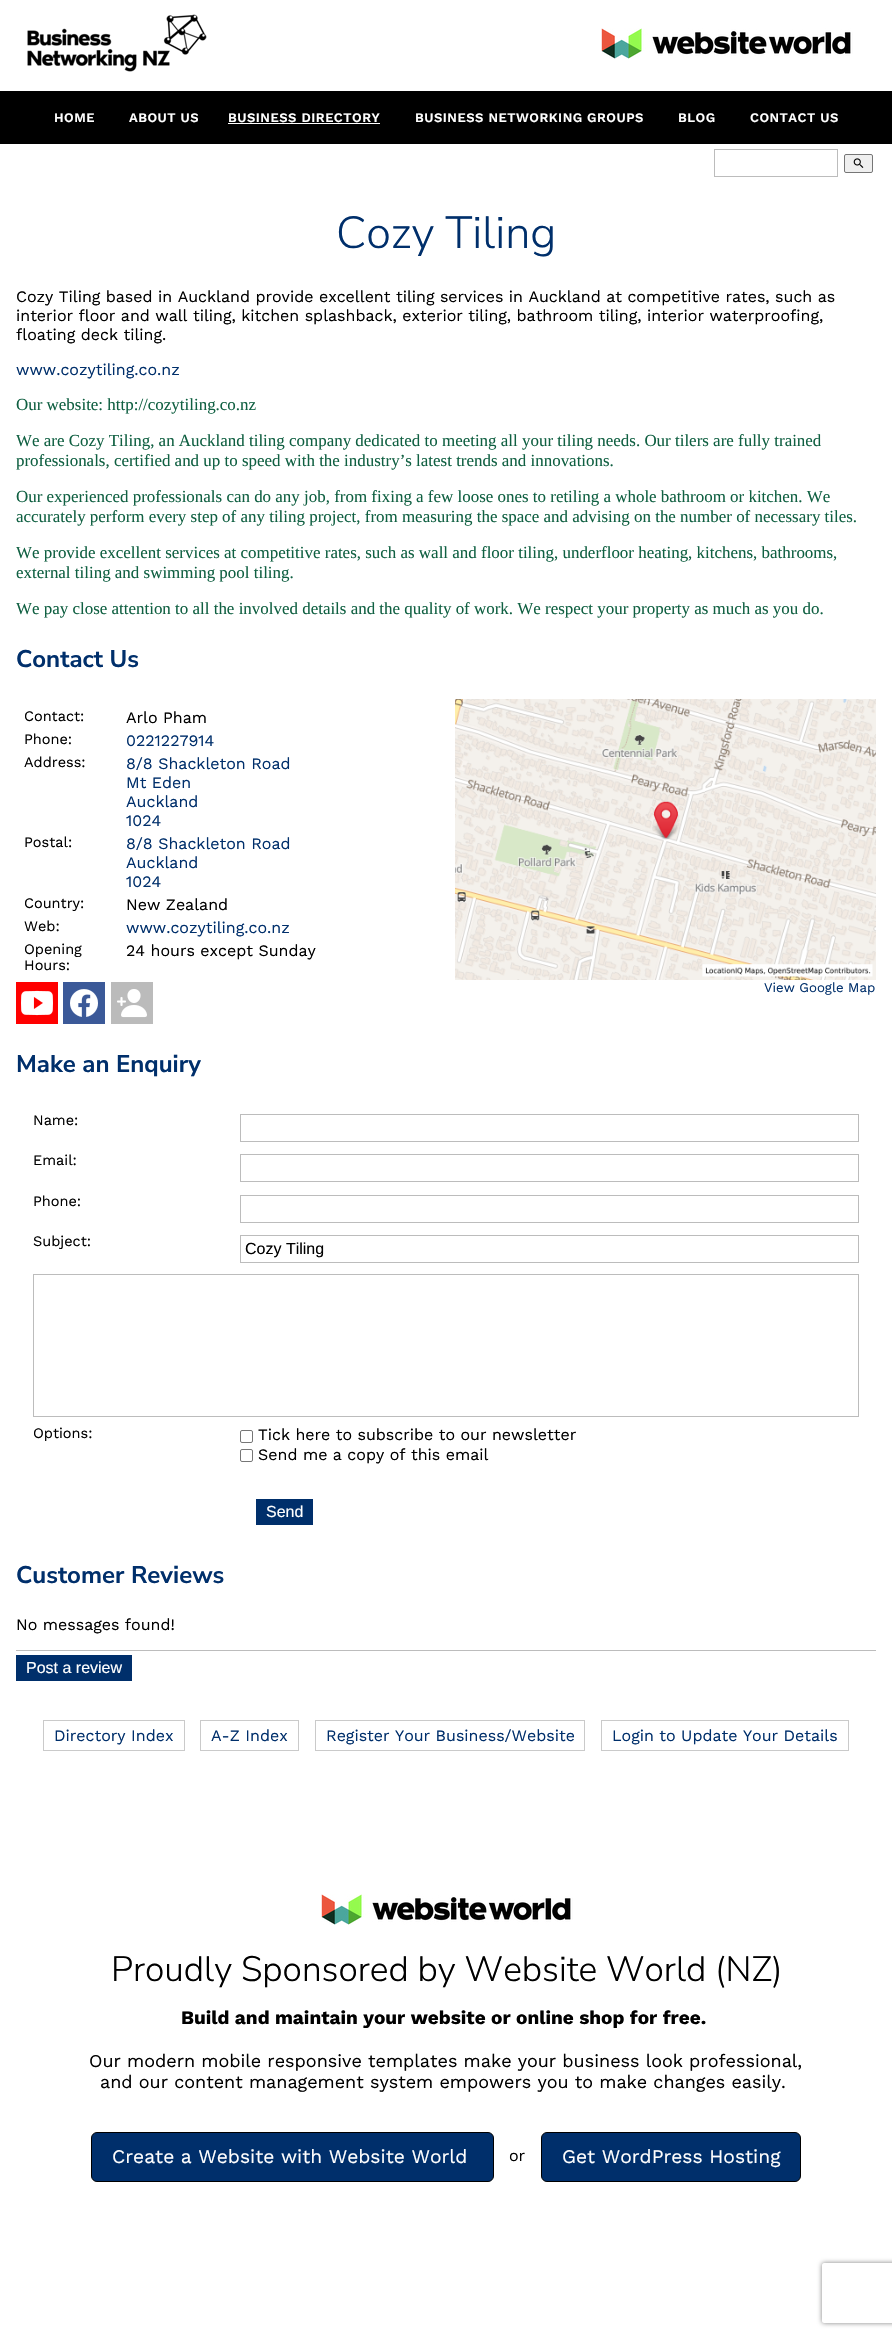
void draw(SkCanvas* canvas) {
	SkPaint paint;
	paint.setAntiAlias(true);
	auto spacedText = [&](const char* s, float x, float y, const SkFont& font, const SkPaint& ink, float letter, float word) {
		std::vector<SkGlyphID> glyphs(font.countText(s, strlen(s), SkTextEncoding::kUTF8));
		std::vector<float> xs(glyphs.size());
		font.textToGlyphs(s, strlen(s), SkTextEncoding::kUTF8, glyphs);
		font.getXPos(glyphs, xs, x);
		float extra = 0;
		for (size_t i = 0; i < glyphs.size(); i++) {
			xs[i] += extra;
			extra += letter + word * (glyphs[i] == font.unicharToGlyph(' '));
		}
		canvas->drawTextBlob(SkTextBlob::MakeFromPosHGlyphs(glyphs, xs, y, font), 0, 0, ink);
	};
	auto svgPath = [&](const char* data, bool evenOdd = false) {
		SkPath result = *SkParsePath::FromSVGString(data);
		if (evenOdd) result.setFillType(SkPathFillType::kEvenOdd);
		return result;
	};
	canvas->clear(0xffffffff);
	canvas->drawImageRect(SkImages::DeferredFromEncodedData(SkData::MakeFromFileName("img1.png")), SkRect::MakeXYWH(27, 14, 180, 58), SkSamplingOptions());
	canvas->drawImageRect(SkImages::DeferredFromEncodedData(SkData::MakeFromFileName("img2.png")), SkRect::MakeXYWH(601, 28, 252, 31), SkSamplingOptions());
	paint.setColor(0xff000000);
	canvas->drawRect(SkRect::MakeXYWH(0, 91, 892, 53), paint);
	SkFont f1(fontMgr->matchFamilyStyle("Work Sans", SkFontStyle(600, SkFontStyle::kNormal_Width, SkFontStyle::kUpright_Slant)), 13);
	f1.setSubpixel(true);
	paint.setColor(0xffffffff);
	spacedText("HOME", 54, 122, f1, paint, 0.5, 0);
	spacedText("ABOUT US", 129, 122, f1, paint, 0.5, 0);
	spacedText("BUSINESS DIRECTORY", 228, 122, f1, paint, 0.5, 0);
	canvas->drawRect(SkRect::MakeXYWH(228, 123, 152, 1), paint);
	spacedText("BUSINESS NETWORKING GROUPS", 415, 122, f1, paint, 0.5, 0);
	spacedText("BLOG", 678, 122, f1, paint, 0.5, 0);
	spacedText("CONTACT US", 750, 122, f1, paint, 0.5, 0);
	paint.setStroke(true);
	paint.setStrokeWidth(1);
	paint.setColor(0xffbcbcbc);
	canvas->drawRect(SkRect::MakeXYWH(714.5, 149.5, 123, 27), paint);
	paint.setStroke(false);
	paint.setColor(0xffefefef);
	canvas->drawRoundRect(SkRect::MakeXYWH(844.5, 154.5, 28, 18), 1.5, 1.5, paint);
	paint.setStroke(true);
	paint.setColor(0xff767676);
	canvas->drawRoundRect(SkRect::MakeXYWH(844.5, 154.5, 28, 18), 1.5, 1.5, paint);
	canvas->drawImageRect(SkImages::DeferredFromEncodedData(SkData::MakeFromFileName("img3.png")), SkRect::MakeXYWH(853, 158, 11, 10), SkSamplingOptions());
	SkFont f2(fontMgr->matchFamilyStyle("Nunito Sans", SkFontStyle(300, SkFontStyle::kNormal_Width, SkFontStyle::kUpright_Slant)), 45);
	f2.setSubpixel(true);
	paint.setStroke(false);
	paint.setColor(0xff002f6b);
	canvas->drawString("Cozy Tiling", 336, 248, f2, paint);
	SkFont f3(fontMgr->matchFamilyStyle("Work Sans", SkFontStyle::Normal()), 16);
	f3.setSubpixel(true);
	paint.setColor(0xff000000);
	canvas->drawString("Cozy Tiling based in Auckland provide excellent tiling services in Auckland at competitive rates, such as", 16, 302, f3, paint);
	canvas->drawString("interior floor and wall tiling, kitchen splashback, exterior tiling, bathroom tiling, interior waterproofing,", 16, 321, f3, paint);
	canvas->drawString("floating deck tiling.", 16, 340, f3, paint);
	paint.setColor(0xff002f6b);
	canvas->drawString("www.cozytiling.co.nz", 16, 375, f3, paint);
	SkFont f4(fontMgr->matchFamilyStyle("Liberation Serif", SkFontStyle::Normal()), 16.95);
	f4.setSubpixel(true);
	paint.setColor(0xff106042);
	canvas->drawString("Our website: http://cozytiling.co.nz", 16, 410, f4, paint);
	canvas->drawString("We are Cozy Tiling, an Auckland tiling company dedicated to meeting all your tiling needs. Our tilers are fully trained", 16, 446, f4, paint);
	canvas->drawString("professionals, certified and up to speed with the industry’s latest trends and innovations.", 16, 466, f4, paint);
	canvas->drawString("Our experienced professionals can do any job, from fixing a few loose ones to retiling a whole bathroom or kitchen. We", 16, 502, f4, paint);
	canvas->drawString("accurately perform every step of any tiling project, from measuring the space and advising on the number of necessary tiles.", 16, 522, f4, paint);
	canvas->drawString("We provide excellent services at competitive rates, such as wall and floor tiling, underfloor heating, kitchens, bathrooms,", 16, 558, f4, paint);
	canvas->drawString("external tiling and swimming pool tiling.", 16, 578, f4, paint);
	canvas->drawString("We pay close attention to all the involved details and the quality of work. We respect your property as much as you do.", 16, 614, f4, paint);
	SkFont f5(fontMgr->matchFamilyStyle("Nunito Sans", SkFontStyle::Bold()), 24);
	f5.setSubpixel(true);
	paint.setColor(0xff002f6b);
	canvas->drawString("Contact Us", 16, 667, f5, paint);
	SkFont f6(fontMgr->matchFamilyStyle("Work Sans", SkFontStyle::Normal()), 14.5);
	f6.setSubpixel(true);
	paint.setColor(0xff000000);
	canvas->drawString("Contact:", 24, 721, f6, paint);
	canvas->drawString("Arlo Pham", 126, 723, f3, paint);
	canvas->drawString("Phone:", 24, 744, f6, paint);
	paint.setColor(0xff002f6b);
	canvas->drawString("0221227914", 126, 746, f3, paint);
	paint.setColor(0xff000000);
	canvas->drawString("Address:", 24, 767, f6, paint);
	paint.setColor(0xff002f6b);
	canvas->drawString("8/8 Shackleton Road", 126, 769, f3, paint);
	canvas->drawString("Mt Eden", 126, 788, f3, paint);
	canvas->drawString("Auckland", 126, 807, f3, paint);
	canvas->drawString("1024", 126, 826, f3, paint);
	paint.setColor(0xff000000);
	canvas->drawString("Postal:", 24, 847, f6, paint);
	paint.setColor(0xff002f6b);
	canvas->drawString("8/8 Shackleton Road", 126, 849, f3, paint);
	canvas->drawString("Auckland", 126, 868, f3, paint);
	canvas->drawString("1024", 126, 887, f3, paint);
	paint.setColor(0xff000000);
	canvas->drawString("Country:", 24, 908, f6, paint);
	canvas->drawString("New Zealand", 126, 910, f3, paint);
	canvas->drawString("Web:", 24, 931, f6, paint);
	paint.setColor(0xff002f6b);
	canvas->drawString("www.cozytiling.co.nz", 126, 933, f3, paint);
	paint.setColor(0xff000000);
	canvas->drawString("Opening", 24, 954, f6, paint);
	canvas->drawString("Hours:", 24, 970, f6, paint);
	canvas->drawString("24 hours except Sunday", 126, 956, f3, paint);
	paint.setColor(0xffff0000);
	canvas->drawRect(SkRect::MakeXYWH(16, 982, 42, 42), paint);
	canvas->drawImageRect(SkImages::DeferredFromEncodedData(SkData::MakeFromFileName("img4.png")), SkRect::MakeXYWH(21, 990, 32, 26), SkSamplingOptions());
	paint.setColor(0xff3b5998);
	canvas->drawRect(SkRect::MakeXYWH(63, 982, 42, 42), paint);
	canvas->drawImageRect(SkImages::DeferredFromEncodedData(SkData::MakeFromFileName("img5.png")), SkRect::MakeXYWH(70, 989, 28, 28), SkSamplingOptions());
	paint.setColor(0xffbbbbbb);
	canvas->drawRect(SkRect::MakeXYWH(111, 982, 42, 42), paint);
	canvas->drawImageRect(SkImages::DeferredFromEncodedData(SkData::MakeFromFileName("img6.png")), SkRect::MakeXYWH(117, 989, 30, 29), SkSamplingOptions());
	canvas->drawImageRect(SkImages::DeferredFromEncodedData(SkData::MakeFromFileName("img7.png")), SkRect::MakeXYWH(455, 699, 421, 281), SkSamplingOptions());
	SkFont f7(fontMgr->matchFamilyStyle("Work Sans", SkFontStyle::Normal()), 13.25);
	f7.setSubpixel(true);
	paint.setColor(0xff002f6b);
	canvas->drawString("View Google Map", 764, 992, f7, paint);
	canvas->drawString("Make an Enquiry", 16, 1072, f5, paint);
	paint.setColor(0xff000000);
	canvas->drawString("Name:", 33, 1125, f6, paint);
	paint.setStroke(true);
	paint.setColor(0xffbcbcbc);
	canvas->drawRect(SkRect::MakeXYWH(240.5, 1114.5, 618, 27), paint);
	paint.setStroke(false);
	paint.setColor(0xff000000);
	canvas->drawString("Email:", 33, 1165, f6, paint);
	paint.setStroke(true);
	paint.setColor(0xffbcbcbc);
	canvas->drawRect(SkRect::MakeXYWH(240.5, 1154.5, 618, 27), paint);
	paint.setStroke(false);
	paint.setColor(0xff000000);
	canvas->drawString("Phone:", 33, 1206, f6, paint);
	paint.setStroke(true);
	paint.setColor(0xffbcbcbc);
	canvas->drawRect(SkRect::MakeXYWH(240.5, 1195.5, 618, 27), paint);
	paint.setStroke(false);
	paint.setColor(0xff000000);
	canvas->drawString("Subject:", 33, 1246, f6, paint);
	paint.setStroke(true);
	paint.setColor(0xffbcbcbc);
	canvas->drawRect(SkRect::MakeXYWH(240.5, 1235.5, 618, 27), paint);
	SkFont f8(fontMgr->matchFamilyStyle("Liberation Sans", SkFontStyle::Normal()), 16);
	f8.setSubpixel(true);
	paint.setStroke(false);
	paint.setColor(0xff000000);
	canvas->drawString("Cozy Tiling", 245, 1254, f8, paint);
	paint.setStroke(true);
	paint.setColor(0xffbcbcbc);
	canvas->drawRect(SkRect::MakeXYWH(33.5, 1274.5, 825, 142), paint);
	paint.setStroke(false);
	paint.setColor(0xff000000);
	canvas->drawString("Options:", 33, 1438, f6, paint);
	paint.setStroke(true);
	paint.setColor(0xff767676);
	canvas->drawRoundRect(SkRect::MakeXYWH(240.5, 1430.5, 12, 12), 1.5, 1.5, paint);
	paint.setStroke(false);
	paint.setColor(0xff000000);
	canvas->drawString("Tick here to subscribe to our newsletter", 258, 1440, f3, paint);
	paint.setStroke(true);
	paint.setColor(0xff767676);
	canvas->drawRoundRect(SkRect::MakeXYWH(240.5, 1449.5, 12, 12), 1.5, 1.5, paint);
	paint.setStroke(false);
	paint.setColor(0xff000000);
	canvas->drawString("Send me a copy of this email", 258, 1460, f3, paint);
	paint.setColor(0xff002f6b);
	canvas->drawRect(SkRect::MakeXYWH(256, 1499, 57, 26), paint);
	paint.setColor(0xffffffff);
	canvas->drawString("Send", 266, 1517, f8, paint);
	paint.setColor(0xff002f6b);
	canvas->drawString("Customer Reviews", 16, 1583, f5, paint);
	paint.setColor(0xff000000);
	canvas->drawString("No messages found!", 16, 1630, f3, paint);
	paint.setColor(0xffbcbcbc);
	canvas->drawRect(SkRect::MakeXYWH(16, 1650, 860, 1), paint);
	paint.setColor(0xff002f6b);
	canvas->drawRect(SkRect::MakeXYWH(16, 1655, 116, 26), paint);
	paint.setColor(0xffffffff);
	canvas->drawString("Post a review", 26, 1673, f8, paint);
	paint.setStroke(true);
	paint.setColor(0xffcacaca);
	canvas->drawRect(SkRect::MakeXYWH(43.5, 1720.5, 141, 30), paint);
	paint.setStroke(false);
	paint.setColor(0xff002f6b);
	canvas->drawString("Directory Index", 54, 1741, f3, paint);
	paint.setStroke(true);
	paint.setColor(0xffcacaca);
	canvas->drawRect(SkRect::MakeXYWH(200.5, 1720.5, 98, 30), paint);
	paint.setStroke(false);
	paint.setColor(0xff002f6b);
	canvas->drawString("A-Z Index", 211, 1741, f3, paint);
	paint.setStroke(true);
	paint.setColor(0xffcacaca);
	canvas->drawRect(SkRect::MakeXYWH(315.5, 1720.5, 269, 30), paint);
	paint.setStroke(false);
	paint.setColor(0xff002f6b);
	canvas->drawString("Register Your Business/Website", 326, 1741, f3, paint);
	paint.setStroke(true);
	paint.setColor(0xffcacaca);
	canvas->drawRect(SkRect::MakeXYWH(601.5, 1720.5, 247, 30), paint);
	paint.setStroke(false);
	paint.setColor(0xff002f6b);
	canvas->drawString("Login to Update Your Details", 612, 1741, f3, paint);
	canvas->drawImageRect(SkImages::DeferredFromEncodedData(SkData::MakeFromFileName("img2.png")), SkRect::MakeXYWH(321, 1894, 252, 31), SkSamplingOptions());
	SkFont f9(fontMgr->matchFamilyStyle("Nunito Sans", SkFontStyle(300, SkFontStyle::kNormal_Width, SkFontStyle::kUpright_Slant)), 35.25);
	f9.setSubpixel(true);
	paint.setColor(0xff000000);
	canvas->drawString("Proudly Sponsored by Website World (NZ)", 111, 1981, f9, paint);
	SkFont f10(fontMgr->matchFamilyStyle("Work Sans", SkFontStyle::Bold()), 19);
	f10.setSubpixel(true);
	canvas->drawString("Build and maintain your website or online shop for free.", 181, 2024, f10, paint);
	SkFont f11(fontMgr->matchFamilyStyle("Work Sans", SkFontStyle::Normal()), 18);
	f11.setSubpixel(true);
	canvas->drawString("Our modern mobile responsive templates make your business look professional,", 89, 2067, f11, paint);
	canvas->drawString("and our content management system empowers you to make changes easily.", 100, 2088, f11, paint);
	paint.setColor(0xff002f6b);
	canvas->drawRoundRect(SkRect::MakeXYWH(91.5, 2132.5, 402, 49), 5.5, 5.5, paint);
	paint.setStroke(true);
	paint.setColor(0xff000000);
	canvas->drawRoundRect(SkRect::MakeXYWH(91.5, 2132.5, 402, 49), 5.5, 5.5, paint);
	SkFont f12(fontMgr->matchFamilyStyle("Work Sans", SkFontStyle::Normal()), 19.25);
	f12.setSubpixel(true);
	paint.setStroke(false);
	paint.setColor(0xffffffff);
	canvas->drawString("Create a Website with Website World", 112, 2163, f12, paint);
	paint.setColor(0xff000000);
	canvas->drawString("or", 509, 2161, f3, paint);
	paint.setColor(0xff002f6b);
	canvas->drawRoundRect(SkRect::MakeXYWH(541.5, 2132.5, 259, 49), 5.5, 5.5, paint);
	paint.setStroke(true);
	paint.setColor(0xff000000);
	canvas->drawRoundRect(SkRect::MakeXYWH(541.5, 2132.5, 259, 49), 5.5, 5.5, paint);
	paint.setStroke(false);
	paint.setColor(0xffffffff);
	canvas->drawString("Get WordPress Hosting", 562, 2163, f12, paint);
	canvas->save();
	canvas->clipPath(svgPath("M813 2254H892V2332H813ZM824 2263H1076C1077 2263 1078 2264 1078 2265V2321C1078 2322 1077 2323 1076 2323H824C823 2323 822 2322 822 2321V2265C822 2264 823 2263 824 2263Z", true), true);
	paint.setColor(0xff808080);
	paint.setMaskFilter(SkMaskFilter::MakeBlur(kNormal_SkBlurStyle, 2.5));
	canvas->drawRoundRect(SkRect::MakeXYWH(822, 2263, 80, 60), 2, 2, paint);
	paint.setMaskFilter(nullptr);
	canvas->restore();
}
